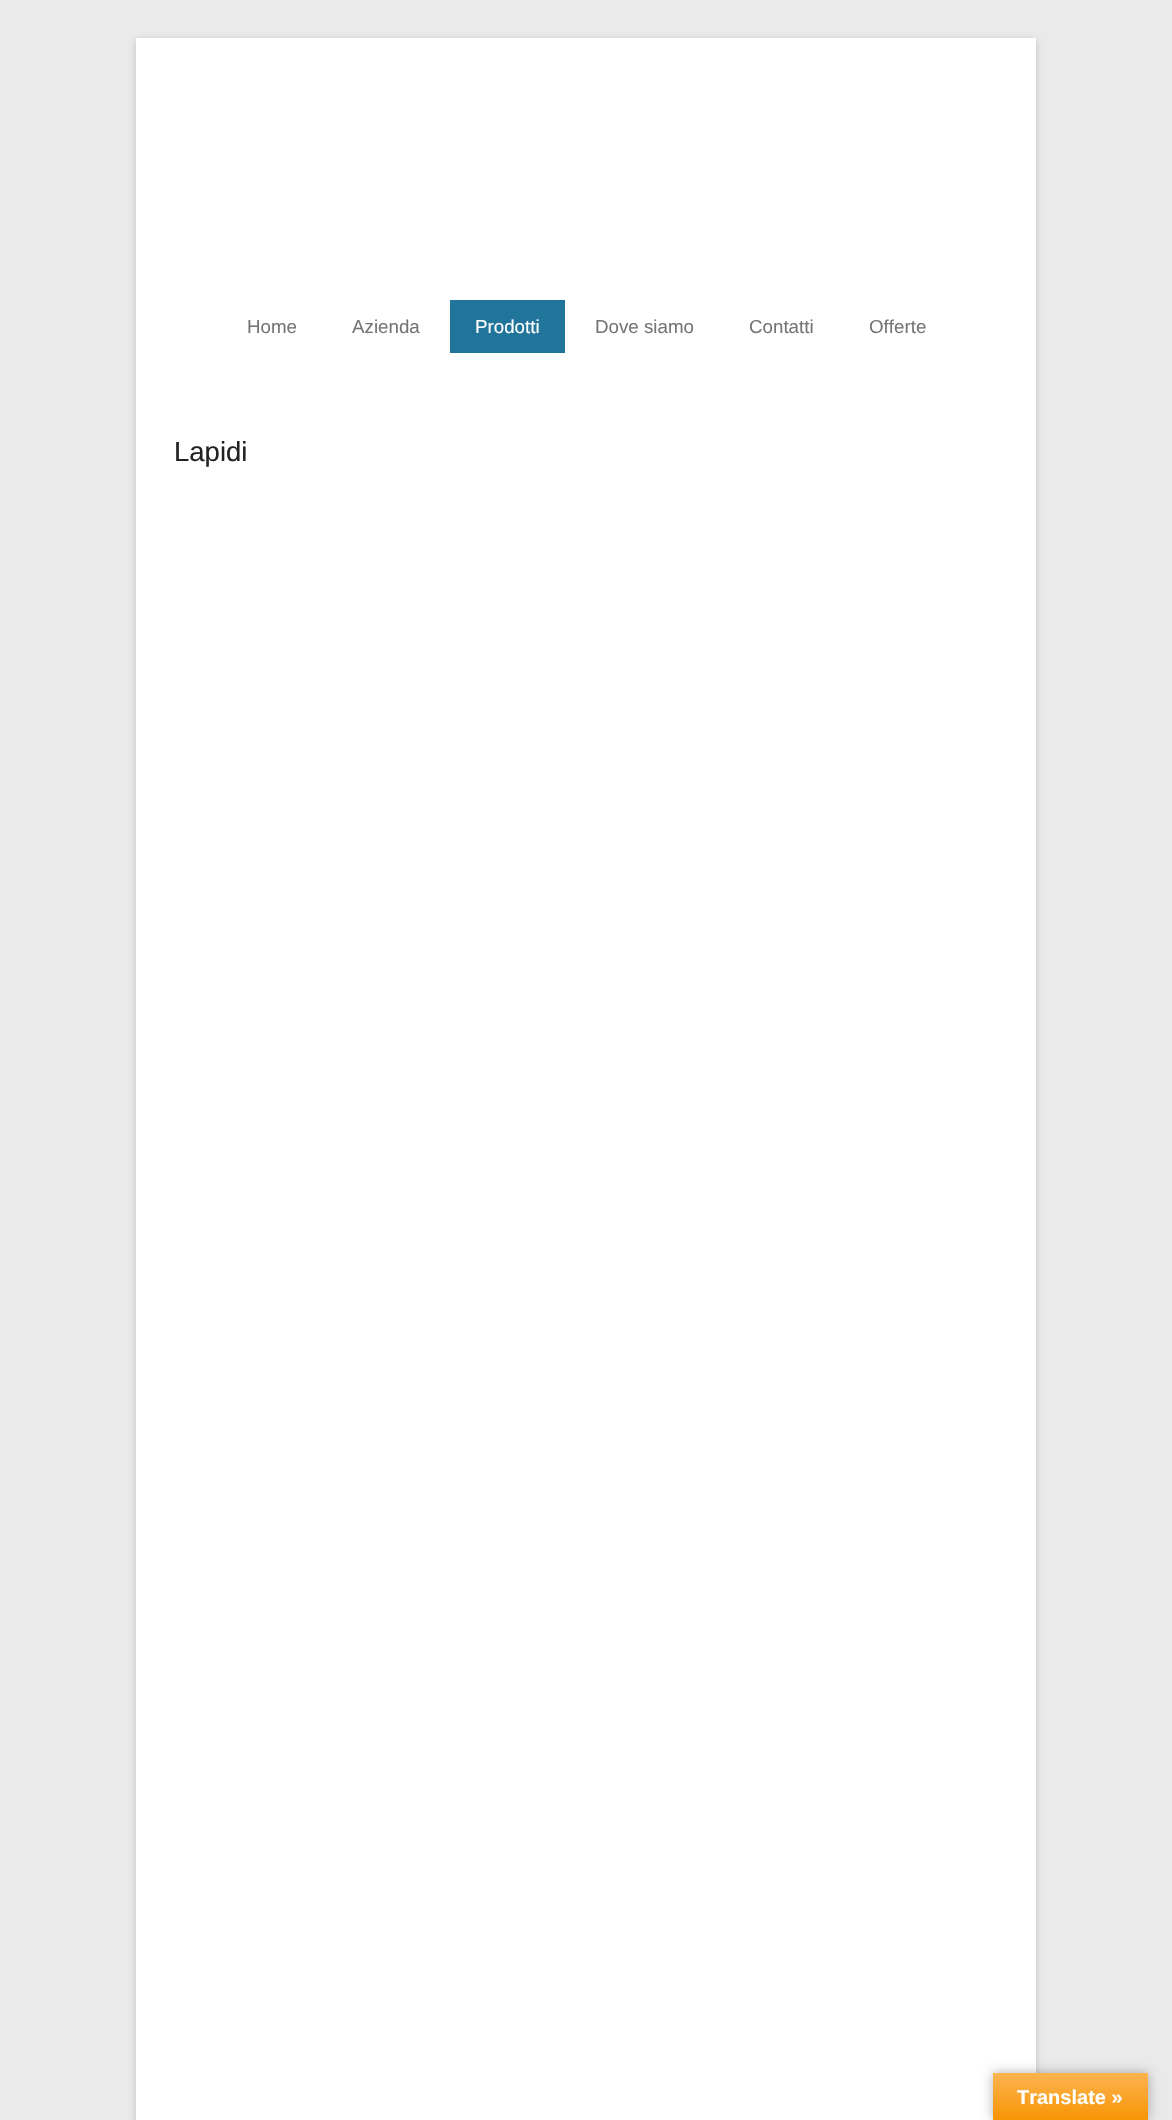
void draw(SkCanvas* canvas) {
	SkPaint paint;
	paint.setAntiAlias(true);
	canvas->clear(0xffeaeaea);
	paint.setColor(0x4d646464);
	paint.setMaskFilter(SkMaskFilter::MakeBlur(kNormal_SkBlurStyle, 4));
	canvas->drawRect(SkRect::MakeXYWH(136, 40, 900, 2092), paint);
	paint.setMaskFilter(nullptr);
	paint.setColor(0xffffffff);
	canvas->drawRect(SkRect::MakeXYWH(136, 38, 900, 2082), paint);
	SkFont f1(fontMgr->matchFamilyStyle("Liberation Sans", SkFontStyle::Normal()), 18.75);
	f1.setSubpixel(true);
	paint.setColor(0xff757575);
	canvas->drawString("Home", 247, 333, f1, paint);
	canvas->drawString("Azienda", 352, 333, f1, paint);
	paint.setColor(0xff21759b);
	canvas->drawRect(SkRect::MakeXYWH(450, 300, 115, 53), paint);
	paint.setColor(0xffffffff);
	canvas->drawString("Prodotti", 475, 333, f1, paint);
	paint.setColor(0xff757575);
	canvas->drawString("Dove siamo", 595, 333, f1, paint);
	canvas->drawString("Contatti", 749, 333, f1, paint);
	canvas->drawString("Offerte", 869, 333, f1, paint);
	SkFont f2(fontMgr->matchFamilyStyle("Liberation Sans", SkFontStyle::Normal()), 27.5);
	f2.setSubpixel(true);
	paint.setColor(0xff222222);
	canvas->drawString("Lapidi", 174, 461, f2, paint);
	paint.setColor(0x4d000000);
	paint.setMaskFilter(SkMaskFilter::MakeBlur(kNormal_SkBlurStyle, 5.5));
	canvas->drawRect(SkRect::MakeXYWH(993, 2073, 155, 47), paint);
	paint.setMaskFilter(nullptr);
	{
		const SkColor colors[] = {0xfffbb450, 0xfff89406};
		const float stops[] = {0, 1};
		const SkPoint ends[] = {{1070, 2073}, {1070, 2120}};
		paint.setShader(SkGradientShader::MakeLinear(ends, colors, stops, 2, SkTileMode::kClamp));
		paint.setAlpha(255);
	}
	canvas->drawRect(SkRect::MakeXYWH(993, 2073, 155, 47), paint);
	SkFont f3(fontMgr->matchFamilyStyle("Liberation Sans", SkFontStyle::Bold()), 20);
	f3.setSubpixel(true);
	paint.setShader(nullptr);
	paint.setColor(0xffffffff);
	canvas->drawString("Translate »", 1017, 2104, f3, paint);
}
